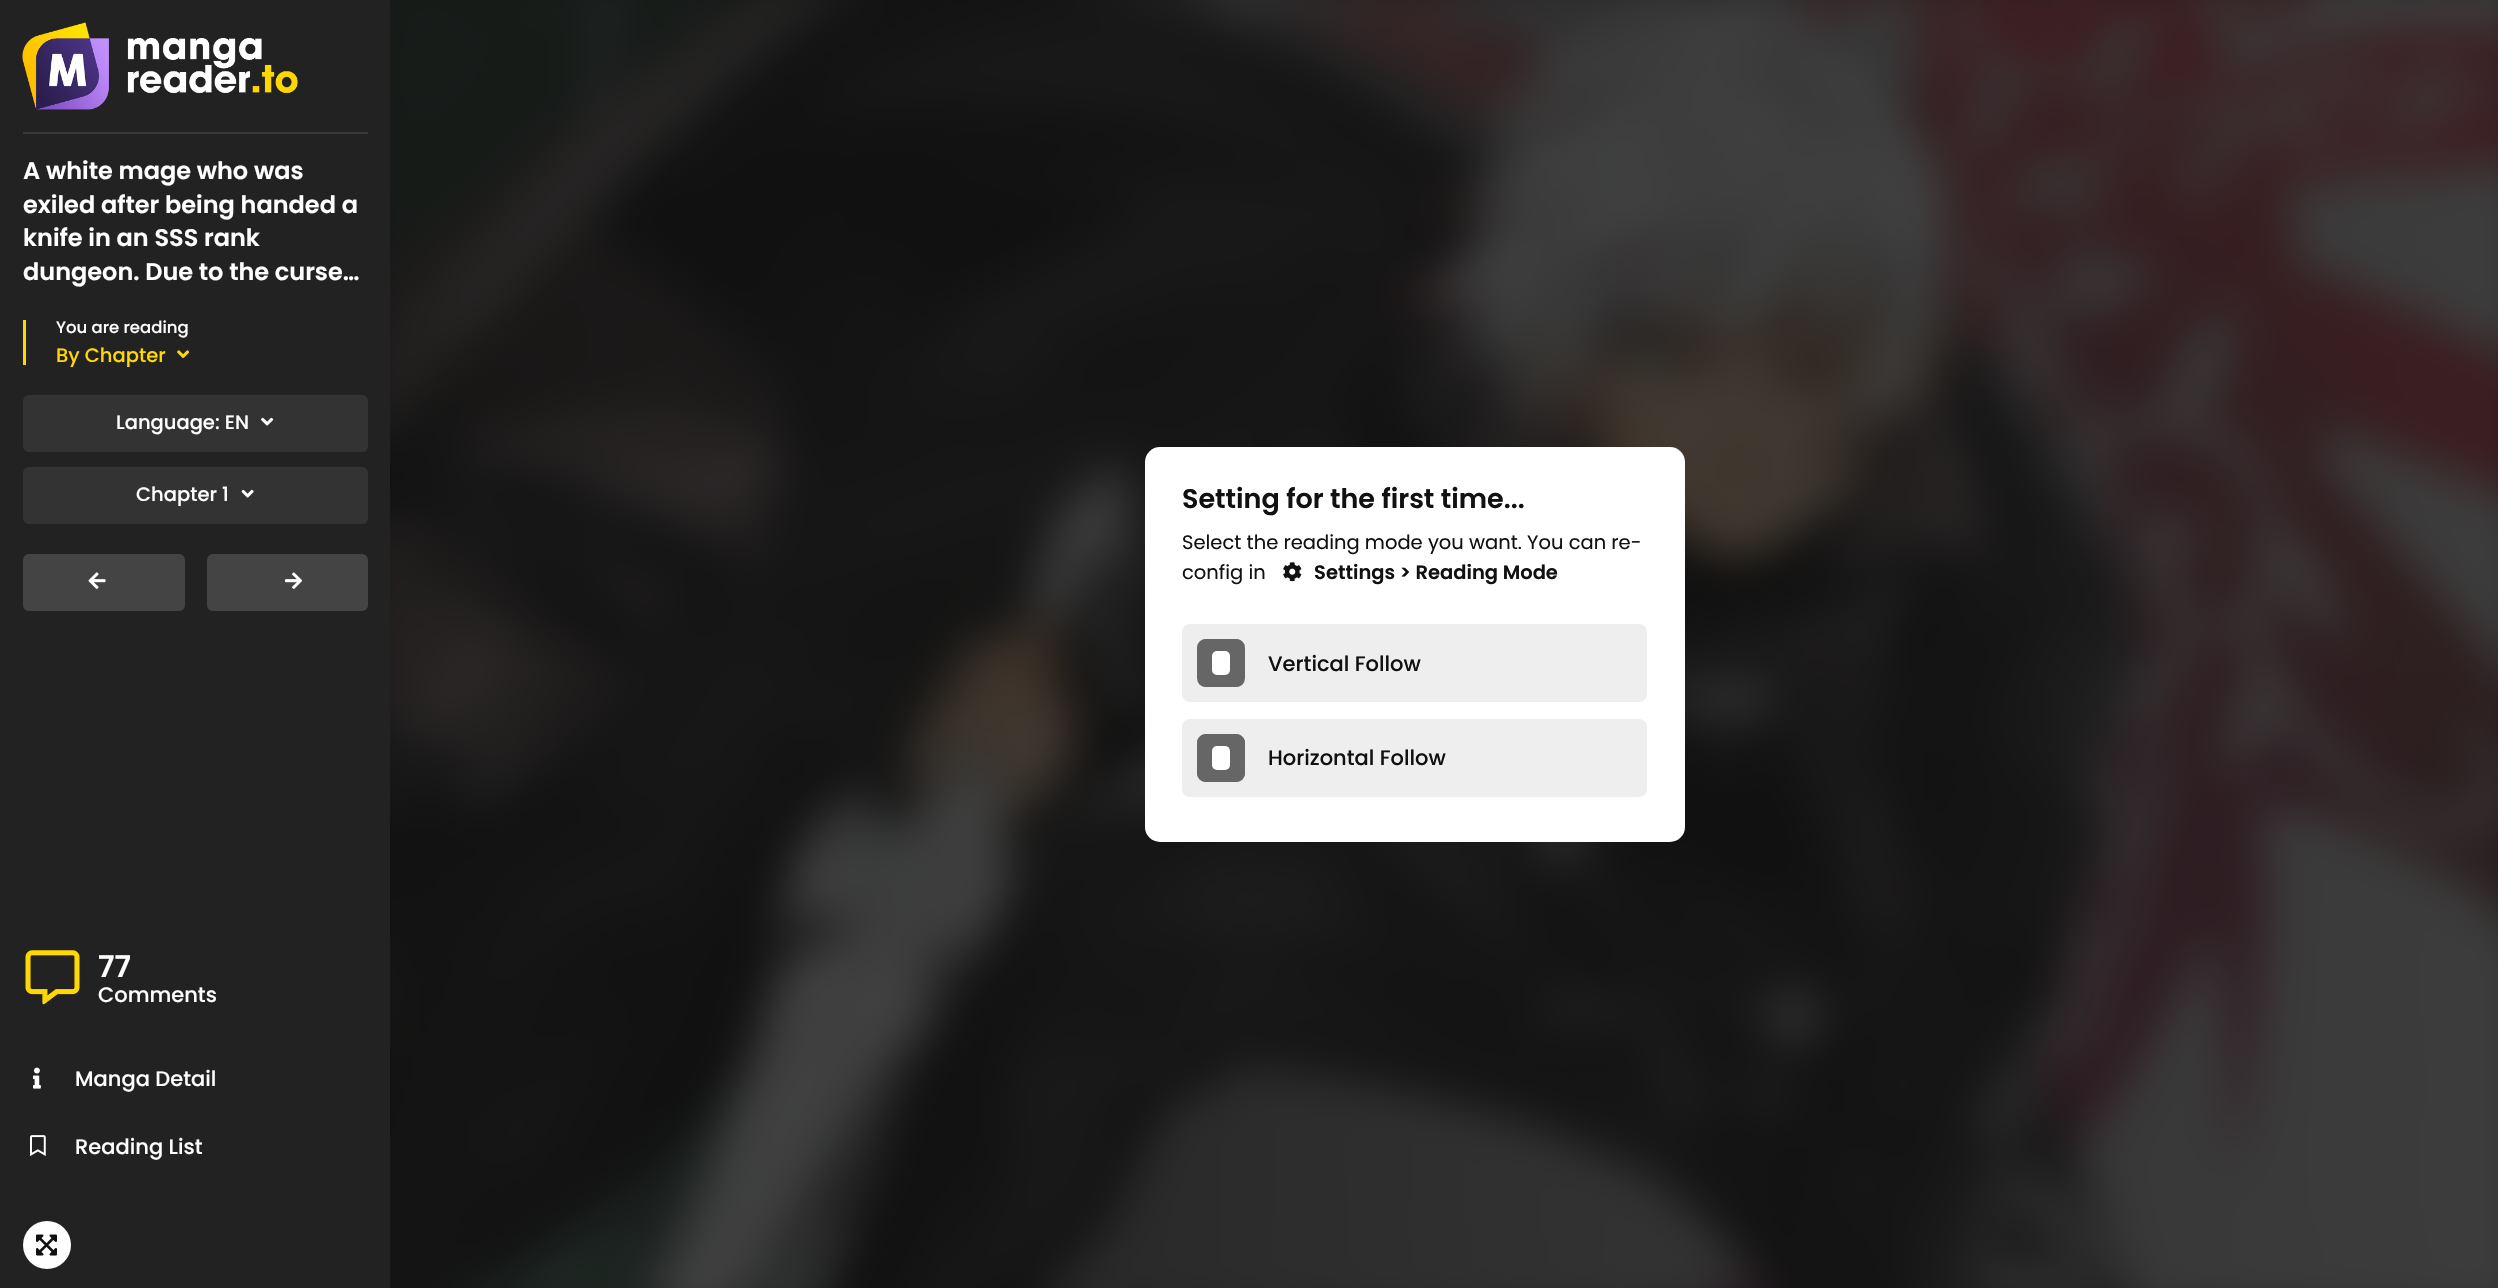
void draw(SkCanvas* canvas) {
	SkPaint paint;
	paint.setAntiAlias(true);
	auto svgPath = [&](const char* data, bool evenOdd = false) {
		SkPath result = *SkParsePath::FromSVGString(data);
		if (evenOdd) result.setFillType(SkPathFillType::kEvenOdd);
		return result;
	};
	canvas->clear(0xff111111);
	paint.setColor(0xff222222);
	canvas->drawRect(SkRect::MakeXYWH(0, 0, 390, 1288), paint);
	canvas->drawImageRect(SkImages::DeferredFromEncodedData(SkData::MakeFromFileName("img1.png")), SkRect::MakeXYWH(22, 22, 276, 88), SkSamplingOptions());
	paint.setColor(0xff383838);
	canvas->drawRect(SkRect::MakeXYWH(23, 132, 345, 2), paint);
	SkFont f1(fontMgr->matchFamilyStyle("Poppins", SkFontStyle(600, SkFontStyle::kNormal_Width, SkFontStyle::kUpright_Slant)), 24);
	f1.setSubpixel(true);
	paint.setColor(0xffffffff);
	canvas->drawString("A white mage who was", 23, 179, f1, paint);
	canvas->drawString("exiled after being handed a", 23, 213, f1, paint);
	canvas->drawString("knife in an SSS rank", 23, 246, f1, paint);
	canvas->drawString("dungeon. Due to the curse…", 23, 280, f1, paint);
	paint.setColor(0xffffd702);
	canvas->drawRect(SkRect::MakeXYWH(23, 320, 3, 45), paint);
	SkFont f2(fontMgr->matchFamilyStyle("Poppins", SkFontStyle(500, SkFontStyle::kNormal_Width, SkFontStyle::kUpright_Slant)), 16.5);
	f2.setSubpixel(true);
	paint.setColor(0xffffffff);
	canvas->drawString("You are reading", 56, 333, f2, paint);
	SkFont f3(fontMgr->matchFamilyStyle("Poppins", SkFontStyle(500, SkFontStyle::kNormal_Width, SkFontStyle::kUpright_Slant)), 19.5);
	f3.setSubpixel(true);
	paint.setColor(0xffffd702);
	canvas->drawString("By Chapter", 56, 362, f3, paint);
	canvas->drawImageRect(SkImages::DeferredFromEncodedData(SkData::MakeFromFileName("img2.png")), SkRect::MakeXYWH(177, 350, 13, 9), SkSamplingOptions());
	paint.setColor(0xff333333);
	canvas->drawRoundRect(SkRect::MakeXYWH(23, 395, 345, 57), 6, 6, paint);
	paint.setColor(0xffffffff);
	canvas->drawString("Language: EN", 116, 429, f3, paint);
	canvas->drawImageRect(SkImages::DeferredFromEncodedData(SkData::MakeFromFileName("img3.png")), SkRect::MakeXYWH(261, 417, 13, 9), SkSamplingOptions());
	paint.setColor(0xff333333);
	canvas->drawRoundRect(SkRect::MakeXYWH(23, 467, 345, 57), 6, 6, paint);
	paint.setColor(0xffffffff);
	canvas->drawString("Chapter 1", 136, 501, f3, paint);
	canvas->drawImageRect(SkImages::DeferredFromEncodedData(SkData::MakeFromFileName("img4.png")), SkRect::MakeXYWH(241, 489, 13, 9), SkSamplingOptions());
	paint.setColor(0xff444444);
	canvas->drawRoundRect(SkRect::MakeXYWH(23, 554, 162, 57), 6, 6, paint);
	canvas->drawImageRect(SkImages::DeferredFromEncodedData(SkData::MakeFromFileName("img5.png")), SkRect::MakeXYWH(88, 572, 18, 17), SkSamplingOptions());
	canvas->drawRoundRect(SkRect::MakeXYWH(207, 554, 161, 57), 6, 6, paint);
	canvas->drawImageRect(SkImages::DeferredFromEncodedData(SkData::MakeFromFileName("img6.png")), SkRect::MakeXYWH(285, 572, 17, 17), SkSamplingOptions());
	canvas->drawImageRect(SkImages::DeferredFromEncodedData(SkData::MakeFromFileName("img7.png")), SkRect::MakeXYWH(25, 950, 55, 55), SkSamplingOptions());
	SkFont f4(fontMgr->matchFamilyStyle("Poppins", SkFontStyle(600, SkFontStyle::kNormal_Width, SkFontStyle::kUpright_Slant)), 30);
	f4.setSubpixel(true);
	paint.setColor(0xffffffff);
	canvas->drawString("77", 98, 977, f4, paint);
	SkFont f5(fontMgr->matchFamilyStyle("Poppins", SkFontStyle(500, SkFontStyle::kNormal_Width, SkFontStyle::kUpright_Slant)), 21);
	f5.setSubpixel(true);
	canvas->drawString("Comments", 98, 1002, f5, paint);
	canvas->drawImageRect(SkImages::DeferredFromEncodedData(SkData::MakeFromFileName("img8.png")), SkRect::MakeXYWH(33, 1067, 8, 22), SkSamplingOptions());
	canvas->drawString("Manga Detail", 75, 1086, f5, paint);
	canvas->drawImageRect(SkImages::DeferredFromEncodedData(SkData::MakeFromFileName("img9.png")), SkRect::MakeXYWH(30, 1135, 16, 21), SkSamplingOptions());
	canvas->drawString("Reading List", 75, 1154, f5, paint);
	canvas->drawCircle(47, 1245, 24, paint);
	canvas->drawImageRect(SkImages::DeferredFromEncodedData(SkData::MakeFromFileName("img10.png")), SkRect::MakeXYWH(36, 1234, 21, 22), SkSamplingOptions());
	canvas->drawImageRect(SkImages::DeferredFromEncodedData(SkData::MakeFromFileName("img11.png")), SkRect::MakeXYWH(390, 0, 2108, 1288), SkSamplingOptions());
	canvas->drawRoundRect(SkRect::MakeXYWH(1145, 447, 540, 395), 15, 15, paint);
	SkFont f6(fontMgr->matchFamilyStyle("Poppins", SkFontStyle(600, SkFontStyle::kNormal_Width, SkFontStyle::kUpright_Slant)), 27);
	f6.setSubpixel(true);
	paint.setColor(0xff111111);
	canvas->drawString("Setting for the first time...", 1182, 508, f6, paint);
	SkFont f7(fontMgr->matchFamilyStyle("Poppins", SkFontStyle::Normal()), 19.5);
	f7.setSubpixel(true);
	canvas->drawString("Select the reading mode you want. You can re-", 1182, 549, f7, paint);
	canvas->drawString("config in", 1182, 579, f7, paint);
	canvas->drawImageRect(SkImages::DeferredFromEncodedData(SkData::MakeFromFileName("img12.png")), SkRect::MakeXYWH(1283, 562, 19, 20), SkSamplingOptions());
	SkFont f8(fontMgr->matchFamilyStyle("Poppins", SkFontStyle(600, SkFontStyle::kNormal_Width, SkFontStyle::kUpright_Slant)), 19.5);
	f8.setSubpixel(true);
	canvas->drawString("Settings > Reading Mode", 1314, 579, f8, paint);
	paint.setColor(0xffeeeeee);
	canvas->drawRoundRect(SkRect::MakeXYWH(1182, 624, 465, 78), 8, 8, paint);
	paint.setColor(0xff666666);
	canvas->drawRoundRect(SkRect::MakeXYWH(1197, 639, 48, 48), 9, 9, paint);
	canvas->save();
	canvas->clipPath(svgPath("M1206 639H1236C1241 639 1245 643 1245 648V678C1245 683 1241 687 1236 687H1206C1201 687 1197 683 1197 678V648C1197 643 1201 639 1206 639Z"), true);
	canvas->drawRect(SkRect::MakeXYWH(1197, 639, 48, 6), paint);
	canvas->restore();
	paint.setColor(0xffffffff);
	canvas->drawRoundRect(SkRect::MakeXYWH(1212, 651, 18, 24), 5, 5, paint);
	canvas->save();
	canvas->clipPath(svgPath("M1206 639H1236C1241 639 1245 643 1245 648V678C1245 683 1241 687 1236 687H1206C1201 687 1197 683 1197 678V648C1197 643 1201 639 1206 639Z"), true);
	paint.setColor(0xff666666);
	canvas->drawRect(SkRect::MakeXYWH(1197, 681, 48, 6), paint);
	canvas->restore();
	paint.setColor(0xff111111);
	canvas->drawString("Vertical Follow", 1268, 671, f5, paint);
	paint.setColor(0xffeeeeee);
	canvas->drawRoundRect(SkRect::MakeXYWH(1182, 719, 465, 78), 8, 8, paint);
	paint.setColor(0xff666666);
	canvas->drawRoundRect(SkRect::MakeXYWH(1197, 734, 48, 48), 9, 9, paint);
	canvas->drawPath(svgPath("M1206 734V782C1201 782 1197 778 1197 773V743C1197 738 1201 734 1206 734Z"), paint);
	paint.setColor(0xffffffff);
	canvas->drawRoundRect(SkRect::MakeXYWH(1212, 746, 18, 24), 5, 5, paint);
	paint.setColor(0xff666666);
	canvas->drawPath(svgPath("M1236 734C1241 734 1245 738 1245 743V773C1245 778 1241 782 1236 782Z"), paint);
	paint.setColor(0xff111111);
	canvas->drawString("Horizontal Follow", 1268, 765, f5, paint);
}
